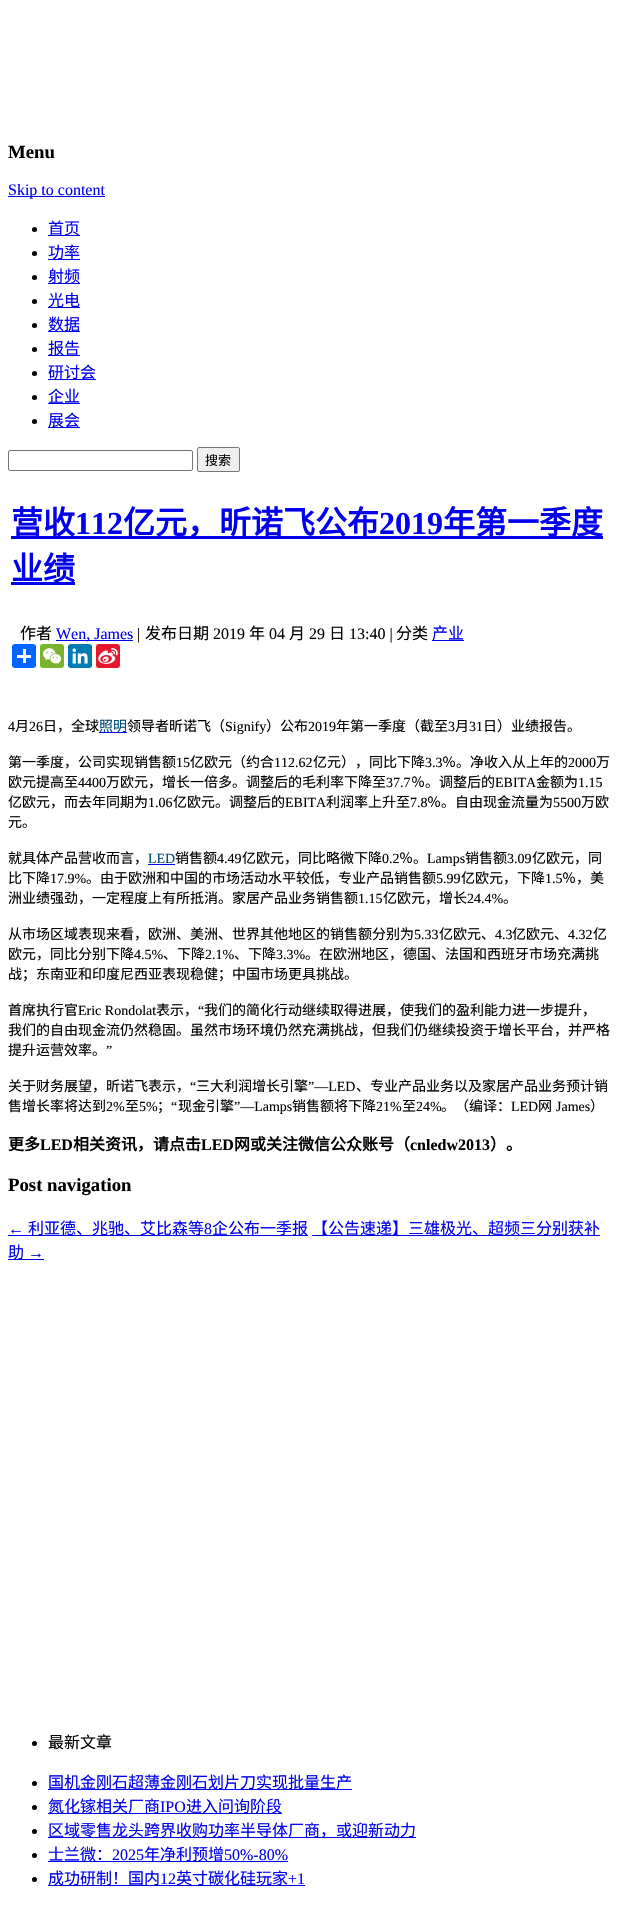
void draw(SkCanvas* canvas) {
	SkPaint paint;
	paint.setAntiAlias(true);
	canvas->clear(0xffffffff);
	SkFont f1(fontMgr->matchFamilyStyle("Liberation Serif", SkFontStyle::Bold()), 18.75);
	f1.setSubpixel(true);
	paint.setColor(0xff000000);
	canvas->drawString("Menu", 8, 158, f1, paint);
	paint.setColor(0xff0000ee);
	canvas->drawRect(SkRect::MakeXYWH(8, 196, 97, 1), paint);
	SkFont f2(fontMgr->matchFamilyStyle("Liberation Serif", SkFontStyle::Normal()), 16);
	f2.setSubpixel(true);
	canvas->drawString("Skip to content", 8, 195, f2, paint);
	paint.setColor(0xff000000);
	canvas->drawCircle(34.5, 229.5, 2.5, paint);
	paint.setColor(0xff0000ee);
	canvas->drawRect(SkRect::MakeXYWH(48, 235, 32, 1), paint);
	SkFont f3(fontMgr->matchFamilyStyle("Noto Sans CJK SC", SkFontStyle::Normal()), 16);
	f3.setSubpixel(true);
	canvas->drawString("首页", 48, 234, f3, paint);
	paint.setColor(0xff000000);
	canvas->drawCircle(34.5, 253.5, 2.5, paint);
	paint.setColor(0xff0000ee);
	canvas->drawRect(SkRect::MakeXYWH(48, 259, 32, 1), paint);
	canvas->drawString("功率", 48, 258, f3, paint);
	paint.setColor(0xff000000);
	canvas->drawCircle(34.5, 277.5, 2.5, paint);
	paint.setColor(0xff0000ee);
	canvas->drawRect(SkRect::MakeXYWH(48, 283, 32, 1), paint);
	canvas->drawString("射频", 48, 282, f3, paint);
	paint.setColor(0xff000000);
	canvas->drawCircle(34.5, 301.5, 2.5, paint);
	paint.setColor(0xff0000ee);
	canvas->drawRect(SkRect::MakeXYWH(48, 307, 32, 1), paint);
	canvas->drawString("光电", 48, 306, f3, paint);
	paint.setColor(0xff000000);
	canvas->drawCircle(34.5, 325.5, 2.5, paint);
	paint.setColor(0xff0000ee);
	canvas->drawRect(SkRect::MakeXYWH(48, 331, 32, 1), paint);
	canvas->drawString("数据", 48, 330, f3, paint);
	paint.setColor(0xff000000);
	canvas->drawCircle(34.5, 349.5, 2.5, paint);
	paint.setColor(0xff0000ee);
	canvas->drawRect(SkRect::MakeXYWH(48, 355, 32, 1), paint);
	canvas->drawString("报告", 48, 354, f3, paint);
	paint.setColor(0xff000000);
	canvas->drawCircle(34.5, 373.5, 2.5, paint);
	paint.setColor(0xff0000ee);
	canvas->drawRect(SkRect::MakeXYWH(48, 379, 48, 1), paint);
	canvas->drawString("研讨会", 48, 378, f3, paint);
	paint.setColor(0xff000000);
	canvas->drawCircle(34.5, 397.5, 2.5, paint);
	paint.setColor(0xff0000ee);
	canvas->drawString("企业", 48, 402, f3, paint);
	canvas->drawRect(SkRect::MakeXYWH(48, 403, 32, 1), paint);
	paint.setColor(0xff000000);
	canvas->drawCircle(34.5, 421.5, 2.5, paint);
	paint.setColor(0xff0000ee);
	canvas->drawRect(SkRect::MakeXYWH(48, 427, 32, 1), paint);
	canvas->drawString("展会", 48, 426, f3, paint);
	paint.setStroke(true);
	paint.setStrokeWidth(1);
	paint.setColor(0xff767676);
	canvas->drawRoundRect(SkRect::MakeXYWH(8.5, 450.5, 184, 20), 1.5, 1.5, paint);
	paint.setStroke(false);
	paint.setColor(0xffefefef);
	canvas->drawRoundRect(SkRect::MakeXYWH(197.5, 447.5, 42, 24), 1.5, 1.5, paint);
	paint.setStroke(true);
	paint.setColor(0xff767676);
	canvas->drawRoundRect(SkRect::MakeXYWH(197.5, 447.5, 42, 24), 1.5, 1.5, paint);
	SkFont f4(fontMgr->matchFamilyStyle("Noto Sans CJK SC", SkFontStyle::Normal()), 13);
	f4.setSubpixel(true);
	paint.setStroke(false);
	paint.setColor(0xff000000);
	canvas->drawString("搜索", 205, 465, f4, paint);
	paint.setColor(0xff0000ee);
	canvas->drawRect(SkRect::MakeXYWH(11, 536, 592, 3), paint);
	SkFont f5(fontMgr->matchFamilyStyle("Noto Sans CJK SC", SkFontStyle::Bold()), 32);
	f5.setSubpixel(true);
	canvas->drawString("营收", 11, 534, f5, paint);
	SkFont f6(fontMgr->matchFamilyStyle("Liberation Serif", SkFontStyle::Bold()), 32);
	f6.setSubpixel(true);
	canvas->drawString("112", 75, 534, f6, paint);
	canvas->drawString("亿元，昕诺飞公布", 123, 534, f5, paint);
	canvas->drawString("2019", 379, 534, f6, paint);
	canvas->drawString("年第一季度", 443, 534, f5, paint);
	canvas->drawRect(SkRect::MakeXYWH(11, 582, 64, 3), paint);
	canvas->drawString("业绩", 11, 580, f5, paint);
	paint.setColor(0xff000000);
	canvas->drawString("作者", 20, 639, f3, paint);
	paint.setColor(0xff0000ee);
	canvas->drawRect(SkRect::MakeXYWH(56, 640, 77, 1), paint);
	canvas->drawString("Wen, James", 56, 639, f2, paint);
	paint.setColor(0xff000000);
	canvas->drawString("|", 137, 639, f2, paint);
	canvas->drawString("发布日期", 145, 639, f3, paint);
	canvas->drawString("2019", 213, 639, f2, paint);
	canvas->drawString("年", 249, 639, f3, paint);
	canvas->drawString("04", 269, 639, f2, paint);
	canvas->drawString("月", 289, 639, f3, paint);
	canvas->drawString("29", 309, 639, f2, paint);
	canvas->drawString("日", 329, 639, f3, paint);
	canvas->drawString("13:40 |", 349, 639, f2, paint);
	canvas->drawString("分类", 396, 639, f3, paint);
	paint.setColor(0xff0000ee);
	canvas->drawRect(SkRect::MakeXYWH(432, 640, 32, 1), paint);
	canvas->drawString("产业", 432, 639, f3, paint);
	paint.setColor(0xff0166ff);
	canvas->drawRoundRect(SkRect::MakeXYWH(12, 644, 24, 24), 3, 3, paint);
	paint.setColor(0xffffffff);
	canvas->drawRect(SkRect::MakeXYWH(23, 649, 3, 14), paint);
	canvas->drawRect(SkRect::MakeXYWH(17, 655, 14, 3), paint);
	paint.setColor(0xff7bb32e);
	canvas->drawRoundRect(SkRect::MakeXYWH(40, 644, 24, 24), 3, 3, paint);
	canvas->drawImageRect(SkImages::DeferredFromEncodedData(SkData::MakeFromFileName("img1.png")), SkRect::MakeXYWH(43, 648, 18, 16), SkSamplingOptions());
	paint.setColor(0xff007bb5);
	canvas->drawRoundRect(SkRect::MakeXYWH(68, 644, 24, 24), 3, 3, paint);
	canvas->drawImageRect(SkImages::DeferredFromEncodedData(SkData::MakeFromFileName("img2.png")), SkRect::MakeXYWH(72, 648, 16, 16), SkSamplingOptions());
	paint.setColor(0xffe6162d);
	canvas->drawRoundRect(SkRect::MakeXYWH(96, 644, 24, 24), 3, 3, paint);
	canvas->drawImageRect(SkImages::DeferredFromEncodedData(SkData::MakeFromFileName("img3.png")), SkRect::MakeXYWH(98, 648, 20, 16), SkSamplingOptions());
	SkFont f7(fontMgr->matchFamilyStyle("Liberation Serif", SkFontStyle::Normal()), 14);
	f7.setSubpixel(true);
	paint.setColor(0xff000000);
	canvas->drawString("4", 8, 731, f7, paint);
	SkFont f8(fontMgr->matchFamilyStyle("Noto Sans CJK SC", SkFontStyle::Normal()), 14);
	f8.setSubpixel(true);
	canvas->drawString("月", 15, 731, f8, paint);
	canvas->drawString("26", 29, 731, f7, paint);
	canvas->drawString("日，全球", 43, 731, f8, paint);
	paint.setColor(0xff0000ee);
	canvas->drawRect(SkRect::MakeXYWH(99, 732, 28, 1), paint);
	paint.setColor(0xff004a73);
	canvas->drawString("照明", 99, 731, f8, paint);
	paint.setColor(0xff000000);
	canvas->drawString("领导者昕诺飞（", 127, 731, f8, paint);
	canvas->drawString("Signify", 225, 731, f7, paint);
	canvas->drawString("）公布", 266, 731, f8, paint);
	canvas->drawString("2019", 308, 731, f7, paint);
	canvas->drawString("年第一季度（截至", 336, 731, f8, paint);
	canvas->drawString("3", 448, 731, f7, paint);
	canvas->drawString("月", 455, 731, f8, paint);
	canvas->drawString("31", 469, 731, f7, paint);
	canvas->drawString("日）业绩报告。", 483, 731, f8, paint);
	canvas->drawString("第一季度，公司实现销售额", 8, 767, f8, paint);
	canvas->drawString("15", 176, 767, f7, paint);
	canvas->drawString("亿欧元（约合", 190, 767, f8, paint);
	canvas->drawString("112.62", 274, 767, f7, paint);
	canvas->drawString("亿元），同比下降", 313, 767, f8, paint);
	canvas->drawString("3.3", 425, 767, f7, paint);
	canvas->drawString("％。净收入从上年的", 442, 767, f8, paint);
	canvas->drawString("2000", 568, 767, f7, paint);
	canvas->drawString("万", 596, 767, f8, paint);
	canvas->drawString("欧元提高至", 8, 787, f8, paint);
	canvas->drawString("4400", 78, 787, f7, paint);
	canvas->drawString("万欧元，增长一倍多。调整后的毛利率下降至", 106, 787, f8, paint);
	canvas->drawString("37.7", 386, 787, f7, paint);
	canvas->drawString("％。调整后的", 411, 787, f8, paint);
	canvas->drawString("EBITA", 495, 787, f7, paint);
	canvas->drawString("金额为", 536, 787, f8, paint);
	canvas->drawString("1.15", 578, 787, f7, paint);
	canvas->drawString("亿欧元，而去年同期为", 8, 807, f8, paint);
	canvas->drawString("1.06", 148, 807, f7, paint);
	canvas->drawString("亿欧元。调整后的", 173, 807, f8, paint);
	canvas->drawString("EBITA", 285, 807, f7, paint);
	canvas->drawString("利润率上升至", 326, 807, f8, paint);
	canvas->drawString("7.8", 410, 807, f7, paint);
	canvas->drawString("％。自由现金流量为", 427, 807, f8, paint);
	canvas->drawString("5500", 553, 807, f7, paint);
	canvas->drawString("万欧", 581, 807, f8, paint);
	canvas->drawString("元。", 8, 827, f8, paint);
	canvas->drawString("就具体产品营收而言，", 8, 863, f8, paint);
	paint.setColor(0xff004a73);
	canvas->drawString("LED", 148, 863, f7, paint);
	paint.setColor(0xff0000ee);
	canvas->drawRect(SkRect::MakeXYWH(148, 864, 27, 1), paint);
	paint.setColor(0xff000000);
	canvas->drawString("销售额", 175, 863, f8, paint);
	canvas->drawString("4.49", 217, 863, f7, paint);
	canvas->drawString("亿欧元，同比略微下降", 242, 863, f8, paint);
	canvas->drawString("0.2", 382, 863, f7, paint);
	canvas->drawString("％。", 399, 863, f8, paint);
	canvas->drawString("Lamps", 427, 863, f7, paint);
	canvas->drawString("销售额", 465, 863, f8, paint);
	canvas->drawString("3.09", 507, 863, f7, paint);
	canvas->drawString("亿欧元，同", 532, 863, f8, paint);
	canvas->drawString("比下降", 8, 883, f8, paint);
	canvas->drawString("17.9%", 50, 883, f7, paint);
	canvas->drawString("。由于欧洲和中国的市场活动水平较低，专业产品销售额", 86, 883, f8, paint);
	canvas->drawString("5.99", 436, 883, f7, paint);
	canvas->drawString("亿欧元，下降", 461, 883, f8, paint);
	canvas->drawString("1.5", 545, 883, f7, paint);
	canvas->drawString("％，美", 562, 883, f8, paint);
	canvas->drawString("洲业绩强劲，一定程度上有所抵消。家居产品业务销售额", 8, 903, f8, paint);
	canvas->drawString("1.15", 358, 903, f7, paint);
	canvas->drawString("亿欧元，增长", 383, 903, f8, paint);
	canvas->drawString("24.4%", 467, 903, f7, paint);
	canvas->drawString("。", 503, 903, f8, paint);
	canvas->drawString("从市场区域表现来看，欧洲、美洲、世界其他地区的销售额分别为", 8, 939, f8, paint);
	canvas->drawString("5.33", 414, 939, f7, paint);
	canvas->drawString("亿欧元、", 439, 939, f8, paint);
	canvas->drawString("4.3", 495, 939, f7, paint);
	canvas->drawString("亿欧元、", 512, 939, f8, paint);
	canvas->drawString("4.32", 568, 939, f7, paint);
	canvas->drawString("亿", 593, 939, f8, paint);
	canvas->drawString("欧元，同比分别下降", 8, 959, f8, paint);
	canvas->drawString("4.5%", 134, 959, f7, paint);
	canvas->drawString("、下降", 163, 959, f8, paint);
	canvas->drawString("2.1%", 205, 959, f7, paint);
	canvas->drawString("、下降", 234, 959, f8, paint);
	canvas->drawString("3.3%", 276, 959, f7, paint);
	canvas->drawString("。在欧洲地区，德国、法国和西班牙市场充满挑", 305, 959, f8, paint);
	canvas->drawString("战；东南亚和印度尼西亚表现稳健；中国市场更具挑战。", 8, 979, f8, paint);
	canvas->drawString("首席执行官", 8, 1015, f8, paint);
	canvas->drawString("Eric Rondolat", 78, 1015, f7, paint);
	canvas->drawString("表示，", 156, 1015, f8, paint);
	canvas->drawString("“", 198, 1015, f7, paint);
	canvas->drawString("我们的简化行动继续取得进展，使我们的盈利能力进一步提升，", 204, 1015, f8, paint);
	canvas->drawString("我们的自由现金流仍然稳固。虽然市场环境仍然充满挑战，但我们仍继续投资于增长平台，并严格", 8, 1035, f8, paint);
	canvas->drawString("提升运营效率。", 8, 1055, f8, paint);
	canvas->drawString("”", 106, 1055, f7, paint);
	canvas->drawString("关于财务展望，昕诺飞表示，", 8, 1091, f8, paint);
	canvas->drawString("“", 190, 1091, f7, paint);
	canvas->drawString("三大利润增长引擎", 196, 1091, f8, paint);
	canvas->drawString("”—LED", 308, 1091, f7, paint);
	canvas->drawString("、专业产品业务以及家居产品业务预计销", 356, 1091, f8, paint);
	canvas->drawString("售增长率将达到", 8, 1111, f8, paint);
	canvas->drawString("2%", 106, 1111, f7, paint);
	canvas->drawString("至", 125, 1111, f8, paint);
	canvas->drawString("5%", 139, 1111, f7, paint);
	canvas->drawString("；", 157, 1111, f8, paint);
	canvas->drawString("“", 171, 1111, f7, paint);
	canvas->drawString("现金引擎", 178, 1111, f8, paint);
	canvas->drawString("”—Lamps", 234, 1111, f7, paint);
	canvas->drawString("销售额将下降", 292, 1111, f8, paint);
	canvas->drawString("21%", 376, 1111, f7, paint);
	canvas->drawString("至", 402, 1111, f8, paint);
	canvas->drawString("24%", 416, 1111, f7, paint);
	canvas->drawString("。（编译：", 441, 1111, f8, paint);
	canvas->drawString("LED", 511, 1111, f7, paint);
	canvas->drawString("网", 538, 1111, f8, paint);
	canvas->drawString("James", 556, 1111, f7, paint);
	canvas->drawString("）", 590, 1111, f8, paint);
	SkFont f9(fontMgr->matchFamilyStyle("Noto Sans CJK SC", SkFontStyle::Bold()), 16);
	f9.setSubpixel(true);
	canvas->drawString("更多", 8, 1150, f9, paint);
	SkFont f10(fontMgr->matchFamilyStyle("Liberation Serif", SkFontStyle::Bold()), 16);
	f10.setSubpixel(true);
	canvas->drawString("LED", 40, 1150, f10, paint);
	canvas->drawString("相关资讯，请点击", 73, 1150, f9, paint);
	canvas->drawString("LED", 201, 1150, f10, paint);
	canvas->drawString("网或关注微信公众账号（", 234, 1150, f9, paint);
	canvas->drawString("cnledw2013", 410, 1150, f10, paint);
	canvas->drawString("）。", 490, 1150, f9, paint);
	canvas->drawString("Post navigation", 8, 1191, f1, paint);
	paint.setColor(0xff0000ee);
	canvas->drawString("←", 8, 1234, f2, paint);
	canvas->drawRect(SkRect::MakeXYWH(8, 1235, 300, 1), paint);
	canvas->drawString("利亚德、兆驰、艾比森等", 28, 1234, f3, paint);
	canvas->drawString("8", 204, 1234, f2, paint);
	canvas->drawString("企公布一季报", 212, 1234, f3, paint);
	canvas->drawRect(SkRect::MakeXYWH(312, 1235, 288, 1), paint);
	canvas->drawString("【公告速递】三雄极光、超频三分别获补", 312, 1234, f3, paint);
	canvas->drawRect(SkRect::MakeXYWH(8, 1259, 36, 1), paint);
	canvas->drawString("助", 8, 1258, f3, paint);
	canvas->drawString("→", 28, 1258, f2, paint);
	paint.setColor(0xff000000);
	canvas->drawCircle(34.5, 1743.5, 2.5, paint);
	canvas->drawString("最新文章", 48, 1748, f3, paint);
	canvas->drawCircle(34.5, 1783.5, 2.5, paint);
	paint.setColor(0xff0000ee);
	canvas->drawRect(SkRect::MakeXYWH(48, 1789, 304, 1), paint);
	canvas->drawString("国机金刚石超薄金刚石划片刀实现批量生产", 48, 1788, f3, paint);
	paint.setColor(0xff000000);
	canvas->drawCircle(34.5, 1807.5, 2.5, paint);
	paint.setColor(0xff0000ee);
	canvas->drawRect(SkRect::MakeXYWH(48, 1813, 234, 1), paint);
	canvas->drawString("氮化镓相关厂商", 48, 1812, f3, paint);
	canvas->drawString("IPO", 160, 1812, f2, paint);
	canvas->drawString("进入问询阶段", 186, 1812, f3, paint);
	paint.setColor(0xff000000);
	canvas->drawCircle(34.5, 1831.5, 2.5, paint);
	paint.setColor(0xff0000ee);
	canvas->drawRect(SkRect::MakeXYWH(48, 1837, 368, 1), paint);
	canvas->drawString("区域零售龙头跨界收购功率半导体厂商，或迎新动力", 48, 1836, f3, paint);
	paint.setColor(0xff000000);
	canvas->drawCircle(34.5, 1855.5, 2.5, paint);
	paint.setColor(0xff0000ee);
	canvas->drawRect(SkRect::MakeXYWH(48, 1861, 240, 1), paint);
	canvas->drawString("士兰微：", 48, 1860, f3, paint);
	canvas->drawString("2025", 112, 1860, f2, paint);
	canvas->drawString("年净利预增", 144, 1860, f3, paint);
	canvas->drawString("50%-80%", 224, 1860, f2, paint);
	paint.setColor(0xff000000);
	canvas->drawCircle(34.5, 1879.5, 2.5, paint);
	paint.setColor(0xff0000ee);
	canvas->drawRect(SkRect::MakeXYWH(48, 1885, 257, 1), paint);
	canvas->drawString("成功研制！国内", 48, 1884, f3, paint);
	canvas->drawString("12", 160, 1884, f2, paint);
	canvas->drawString("英寸碳化硅玩家", 176, 1884, f3, paint);
	canvas->drawString("+1", 288, 1884, f2, paint);
}
